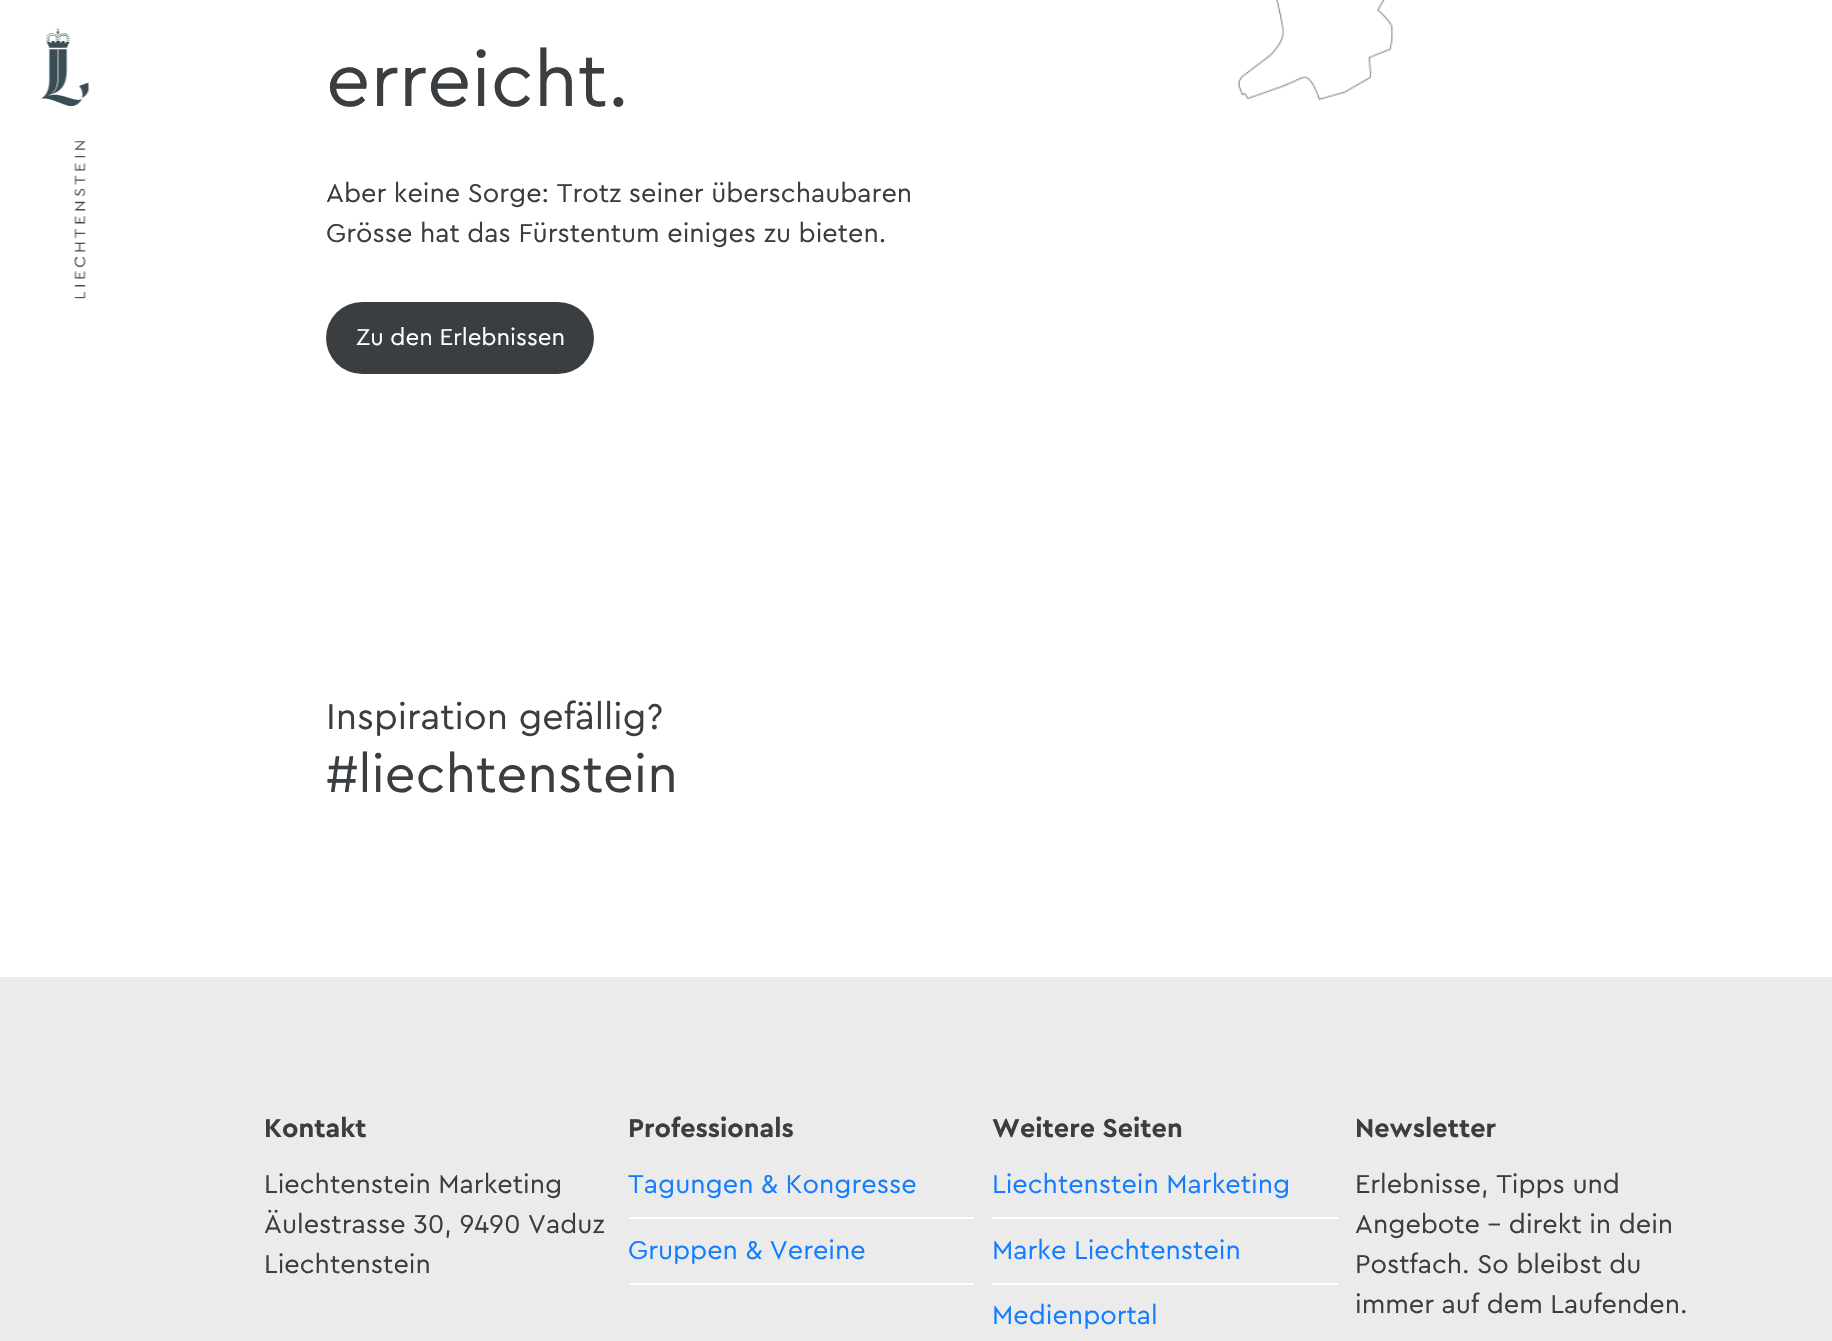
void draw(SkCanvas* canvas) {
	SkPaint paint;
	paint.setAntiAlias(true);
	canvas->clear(0xffffffff);
	canvas->drawImageRect(SkImages::DeferredFromEncodedData(SkData::MakeFromFileName("img1.png")), SkRect::MakeXYWH(40, 27, 49, 272), SkSamplingOptions());
	SkFont f1(fontMgr->matchFamilyStyle("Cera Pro", SkFontStyle::Normal()), 78);
	f1.setSubpixel(true);
	paint.setColor(0xff3a3e41);
	canvas->drawString("erreicht.", 326, 106, f1, paint);
	SkFont f2(fontMgr->matchFamilyStyle("Cera Pro", SkFontStyle::Normal()), 27);
	f2.setSubpixel(true);
	canvas->drawString("Aber keine Sorge: Trotz seiner überschaubaren", 326, 202, f2, paint);
	canvas->drawString("Grösse hat das Fürstentum einiges zu bieten.", 326, 242, f2, paint);
	canvas->drawRoundRect(SkRect::MakeXYWH(326, 302, 268, 72), 36, 36, paint);
	SkFont f3(fontMgr->matchFamilyStyle("Cera Pro", SkFontStyle::Normal()), 24);
	f3.setSubpixel(true);
	paint.setColor(0xffffffff);
	canvas->drawString("Zu den Erlebnissen", 356, 345, f3, paint);
	canvas->drawImageRect(SkImages::DeferredFromEncodedData(SkData::MakeFromFileName("img2.png")), SkRect::MakeXYWH(1237, 0, 157, 101), SkSamplingOptions());
	SkFont f4(fontMgr->matchFamilyStyle("Cera Pro", SkFontStyle::Normal()), 37.5);
	f4.setSubpixel(true);
	paint.setColor(0xff3a3e41);
	canvas->drawString("Inspiration gefällig?", 326, 729, f4, paint);
	SkFont f5(fontMgr->matchFamilyStyle("Cera Pro", SkFontStyle::Normal()), 54);
	f5.setSubpixel(true);
	canvas->drawString("#liechtenstein", 326, 792, f5, paint);
	paint.setColor(0xffebebeb);
	canvas->drawRect(SkRect::MakeXYWH(0, 977, 1832, 364), paint);
	SkFont f6(fontMgr->matchFamilyStyle("Cera Pro", SkFontStyle::Bold()), 27);
	f6.setSubpixel(true);
	paint.setColor(0xff3a3e41);
	canvas->drawString("Kontakt", 264, 1137, f6, paint);
	canvas->drawString("Liechtenstein Marketing", 264, 1193, f2, paint);
	canvas->drawString("Äulestrasse 30, 9490 Vaduz", 264, 1233, f2, paint);
	canvas->drawString("Liechtenstein", 264, 1273, f2, paint);
	canvas->drawString("Professionals", 628, 1137, f6, paint);
	paint.setColor(0xffffffff);
	canvas->drawRect(SkRect::MakeXYWH(629, 1217, 345, 2), paint);
	paint.setColor(0xff147dff);
	canvas->drawString("Tagungen & Kongresse", 628, 1193, f2, paint);
	paint.setColor(0xffffffff);
	canvas->drawRect(SkRect::MakeXYWH(629, 1283, 345, 2), paint);
	paint.setColor(0xff147dff);
	canvas->drawString("Gruppen & Vereine", 628, 1259, f2, paint);
	paint.setColor(0xff3a3e41);
	canvas->drawString("Weitere Seiten", 992, 1137, f6, paint);
	paint.setColor(0xffffffff);
	canvas->drawRect(SkRect::MakeXYWH(992, 1217, 346, 2), paint);
	paint.setColor(0xff147dff);
	canvas->drawString("Liechtenstein Marketing", 992, 1193, f2, paint);
	paint.setColor(0xffffffff);
	canvas->drawRect(SkRect::MakeXYWH(992, 1283, 346, 2), paint);
	paint.setColor(0xff147dff);
	canvas->drawString("Marke Liechtenstein", 992, 1259, f2, paint);
	canvas->drawString("Medienportal", 992, 1324, f2, paint);
	paint.setColor(0xff3a3e41);
	canvas->drawString("Newsletter", 1355, 1137, f6, paint);
	canvas->drawString("Erlebnisse, Tipps und", 1355, 1193, f2, paint);
	canvas->drawString("Angebote – direkt in dein", 1355, 1233, f2, paint);
	canvas->drawString("Postfach. So bleibst du", 1355, 1273, f2, paint);
	canvas->drawString("immer auf dem Laufenden.", 1355, 1313, f2, paint);
}
